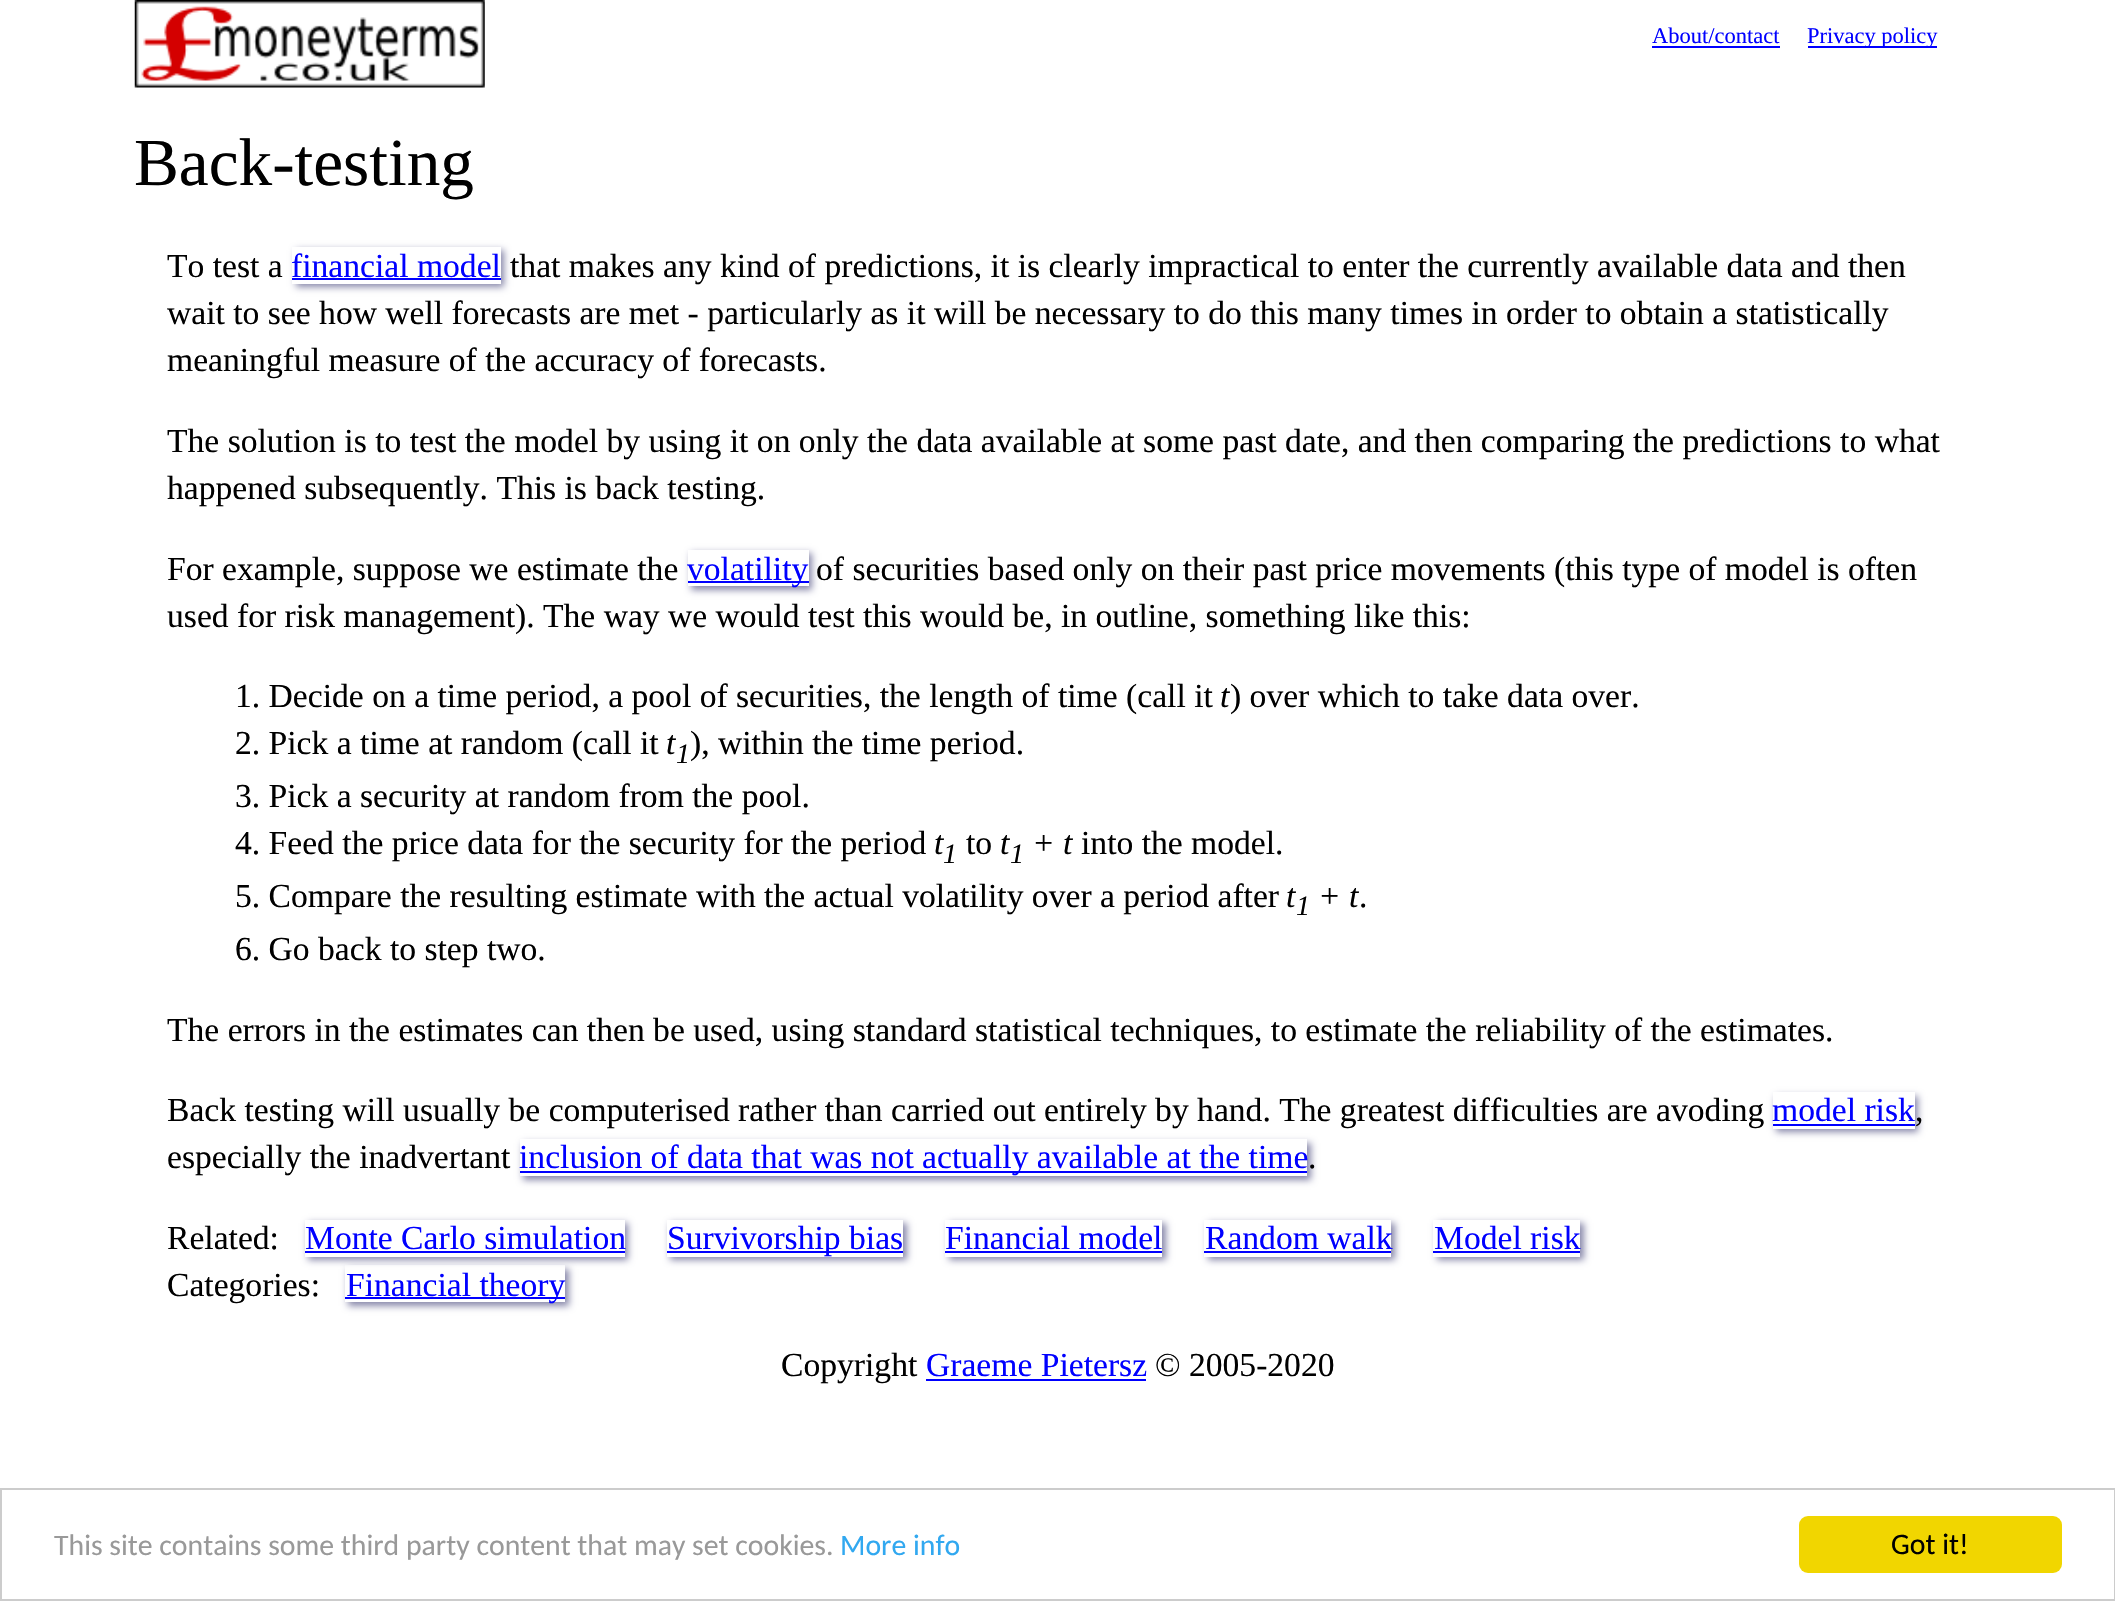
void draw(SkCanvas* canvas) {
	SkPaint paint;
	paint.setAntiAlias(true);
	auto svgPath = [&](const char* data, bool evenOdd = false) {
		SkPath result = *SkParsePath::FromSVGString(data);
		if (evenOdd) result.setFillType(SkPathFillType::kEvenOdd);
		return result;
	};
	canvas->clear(0xffffffff);
	canvas->drawImageRect(SkImages::DeferredFromEncodedData(SkData::MakeFromFileName("img1.png")), SkRect::MakeXYWH(134, 0, 351, 88), SkSamplingOptions());
	SkFont f1(fontMgr->matchFamilyStyle("Liberation Serif", SkFontStyle::Normal()), 22.5);
	f1.setSubpixel(true);
	paint.setColor(0xff0000ff);
	canvas->drawString("About/contact", 1652, 43, f1, paint);
	canvas->drawRect(SkRect::MakeXYWH(1652, 46, 128, 2), paint);
	canvas->drawRect(SkRect::MakeXYWH(1808, 46, 129, 2), paint);
	canvas->drawString("Privacy policy", 1807, 43, f1, paint);
	SkFont f2(fontMgr->matchFamilyStyle("Liberation Serif", SkFontStyle::Normal()), 67.25);
	f2.setSubpixel(true);
	paint.setColor(0xff000000);
	canvas->drawString("Back-testing", 134, 185, f2, paint);
	SkFont f3(fontMgr->matchFamilyStyle("Liberation Serif", SkFontStyle::Normal()), 33.6);
	f3.setSubpixel(true);
	canvas->drawString("To test a", 167, 277, f3, paint);
	canvas->save();
	canvas->clipPath(svgPath("M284 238H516V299H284ZM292 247H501V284H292Z", true), true);
	paint.setColor(0xff8888aa);
	paint.setMaskFilter(SkMaskFilter::MakeBlur(kNormal_SkBlurStyle, 3.5));
	canvas->drawRect(SkRect::MakeXYWH(296, 250, 208, 37), paint);
	paint.setMaskFilter(nullptr);
	canvas->restore();
	paint.setColor(0xff0000ff);
	canvas->drawString("financial model", 291, 277, f3, paint);
	canvas->drawRect(SkRect::MakeXYWH(292, 278, 209, 2), paint);
	paint.setColor(0xff000000);
	canvas->drawString("that makes any kind of predictions, it is clearly impractical to enter the currently available data and then", 510, 277, f3, paint);
	canvas->drawString("wait to see how well forecasts are met - particularly as it", 167, 324, f3, paint);
	canvas->drawString("will be necessary to do this many times in order to obtain a statistically", 934, 324, f3, paint);
	canvas->drawString("meaningful measure of the accuracy of forecasts.", 167, 371, f3, paint);
	canvas->drawString("The solution is to test the model by using it on only the data available at some past date, and then comparing the predictions to what", 167, 452, f3, paint);
	canvas->drawString("happened subsequently. This is back testing.", 167, 499, f3, paint);
	canvas->drawString("For example, suppose we estimate the", 167, 580, f3, paint);
	canvas->save();
	canvas->clipPath(svgPath("M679 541H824V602H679ZM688 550H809V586H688Z", true), true);
	paint.setColor(0xff8888aa);
	paint.setMaskFilter(SkMaskFilter::MakeBlur(kNormal_SkBlurStyle, 3.5));
	canvas->drawRect(SkRect::MakeXYWH(691, 553, 121, 37), paint);
	paint.setMaskFilter(nullptr);
	canvas->restore();
	paint.setColor(0xff0000ff);
	canvas->drawRect(SkRect::MakeXYWH(688, 581, 121, 2), paint);
	canvas->drawString("volatility", 687, 580, f3, paint);
	paint.setColor(0xff000000);
	canvas->drawString("of securities based only on their past price movements (this type of model is often", 816, 580, f3, paint);
	canvas->drawString("used for risk management). The way we would test this would be, in outline, something like this:", 167, 627, f3, paint);
	canvas->drawString("1. Decide on a time period, a pool of securities, the length of time (call it", 235, 707, f3, paint);
	SkFont f4(fontMgr->matchFamilyStyle("Liberation Serif", SkFontStyle::Italic()), 33.6);
	f4.setSubpixel(true);
	canvas->drawString("t", 1220, 707, f4, paint);
	canvas->drawString(") over which to take data over.", 1230, 707, f3, paint);
	canvas->drawString("2. Pick a time at random (call it", 235, 754, f3, paint);
	canvas->drawString("t", 666, 754, f4, paint);
	SkFont f5(fontMgr->matchFamilyStyle("Liberation Serif", SkFontStyle::Italic()), 28);
	f5.setSubpixel(true);
	canvas->drawString("1", 676, 763, f5, paint);
	canvas->drawString("), within the time period.", 690, 754, f3, paint);
	canvas->drawString("3. Pick a security at random from the pool.", 235, 807, f3, paint);
	canvas->drawString("4. Feed the price data for the security for the period", 235, 854, f3, paint);
	canvas->drawString("t", 934, 854, f4, paint);
	canvas->drawString("1", 943, 863, f5, paint);
	canvas->drawString("to", 966, 854, f3, paint);
	canvas->drawString("t", 1000, 854, f4, paint);
	canvas->drawString("1", 1010, 863, f5, paint);
	canvas->drawString("+ t", 1032, 854, f4, paint);
	canvas->drawString("into the model.", 1081, 854, f3, paint);
	canvas->drawString("5. Compare the resulting estimate with the actual volatility over a period after", 235, 907, f3, paint);
	canvas->drawString("t", 1286, 907, f4, paint);
	canvas->drawString("1", 1296, 915, f5, paint);
	canvas->drawString("+ t", 1318, 907, f4, paint);
	canvas->drawString(".", 1359, 907, f3, paint);
	canvas->drawString("6. Go back to step two.", 235, 960, f3, paint);
	canvas->drawString("The errors in the estimates can then be used, using standard statistical techniques, to estimate the reliability of the estimates.", 167, 1041, f3, paint);
	canvas->drawString("Back testing will usually be computerised rather than carried out entirely by hand. The greatest difficulties are avoding", 167, 1121, f3, paint);
	canvas->save();
	canvas->clipPath(svgPath("M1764 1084H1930V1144H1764ZM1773 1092H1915V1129H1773Z", true), true);
	paint.setColor(0xff8888aa);
	paint.setMaskFilter(SkMaskFilter::MakeBlur(kNormal_SkBlurStyle, 3.5));
	canvas->drawRect(SkRect::MakeXYWH(1776, 1096, 142, 36), paint);
	paint.setMaskFilter(nullptr);
	canvas->restore();
	paint.setColor(0xff0000ff);
	canvas->drawString("model risk", 1772, 1121, f3, paint);
	canvas->drawRect(SkRect::MakeXYWH(1773, 1124, 142, 2), paint);
	paint.setColor(0xff000000);
	canvas->drawString(",", 1915, 1121, f3, paint);
	canvas->drawString("especially the inadvertant", 167, 1168, f3, paint);
	canvas->save();
	canvas->clipPath(svgPath("M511 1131H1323V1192H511ZM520 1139H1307V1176H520Z", true), true);
	paint.setColor(0xff8888aa);
	paint.setMaskFilter(SkMaskFilter::MakeBlur(kNormal_SkBlurStyle, 3.5));
	canvas->drawRect(SkRect::MakeXYWH(523, 1143, 788, 37), paint);
	paint.setMaskFilter(nullptr);
	canvas->restore();
	paint.setColor(0xff0000ff);
	canvas->drawRect(SkRect::MakeXYWH(520, 1171, 787, 2), paint);
	canvas->drawString("inclusion of data that was not actually available at the time", 519, 1168, f3, paint);
	paint.setColor(0xff000000);
	canvas->drawString(".", 1308, 1168, f3, paint);
	canvas->drawString("Related:", 167, 1249, f3, paint);
	canvas->save();
	canvas->clipPath(svgPath("M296 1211H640V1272H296ZM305 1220H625V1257H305Z", true), true);
	paint.setColor(0xff8888aa);
	paint.setMaskFilter(SkMaskFilter::MakeBlur(kNormal_SkBlurStyle, 3.5));
	canvas->drawRect(SkRect::MakeXYWH(308, 1223, 320, 37), paint);
	paint.setMaskFilter(nullptr);
	canvas->restore();
	paint.setColor(0xff0000ff);
	canvas->drawString("Monte Carlo simulation", 305, 1249, f3, paint);
	canvas->drawRect(SkRect::MakeXYWH(305, 1251, 320, 2), paint);
	canvas->save();
	canvas->clipPath(svgPath("M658 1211H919V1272H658ZM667 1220H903V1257H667Z", true), true);
	paint.setColor(0xff8888aa);
	paint.setMaskFilter(SkMaskFilter::MakeBlur(kNormal_SkBlurStyle, 3.5));
	canvas->drawRect(SkRect::MakeXYWH(670, 1223, 237, 37), paint);
	paint.setMaskFilter(nullptr);
	canvas->restore();
	paint.setColor(0xff0000ff);
	canvas->drawRect(SkRect::MakeXYWH(667, 1251, 236, 2), paint);
	canvas->drawString("Survivorship bias", 667, 1249, f3, paint);
	canvas->save();
	canvas->clipPath(svgPath("M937 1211H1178V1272H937ZM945 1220H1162V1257H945Z", true), true);
	paint.setColor(0xff8888aa);
	paint.setMaskFilter(SkMaskFilter::MakeBlur(kNormal_SkBlurStyle, 3.5));
	canvas->drawRect(SkRect::MakeXYWH(949, 1223, 217, 37), paint);
	paint.setMaskFilter(nullptr);
	canvas->restore();
	paint.setColor(0xff0000ff);
	canvas->drawString("Financial model", 945, 1249, f3, paint);
	canvas->drawRect(SkRect::MakeXYWH(945, 1251, 217, 2), paint);
	canvas->save();
	canvas->clipPath(svgPath("M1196 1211H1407V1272H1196ZM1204 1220H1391V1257H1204Z", true), true);
	paint.setColor(0xff8888aa);
	paint.setMaskFilter(SkMaskFilter::MakeBlur(kNormal_SkBlurStyle, 3.5));
	canvas->drawRect(SkRect::MakeXYWH(1208, 1223, 187, 37), paint);
	paint.setMaskFilter(nullptr);
	canvas->restore();
	paint.setColor(0xff0000ff);
	canvas->drawString("Random walk", 1205, 1249, f3, paint);
	canvas->drawRect(SkRect::MakeXYWH(1204, 1251, 187, 2), paint);
	canvas->save();
	canvas->clipPath(svgPath("M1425 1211H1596V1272H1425ZM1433 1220H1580V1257H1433Z", true), true);
	paint.setColor(0xff8888aa);
	paint.setMaskFilter(SkMaskFilter::MakeBlur(kNormal_SkBlurStyle, 3.5));
	canvas->drawRect(SkRect::MakeXYWH(1437, 1223, 147, 37), paint);
	paint.setMaskFilter(nullptr);
	canvas->restore();
	paint.setColor(0xff0000ff);
	canvas->drawString("Model risk", 1434, 1249, f3, paint);
	canvas->drawRect(SkRect::MakeXYWH(1433, 1251, 147, 2), paint);
	paint.setColor(0xff000000);
	canvas->drawString("Categories:", 167, 1296, f3, paint);
	canvas->save();
	canvas->clipPath(svgPath("M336 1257H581V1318H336ZM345 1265H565V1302H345Z", true), true);
	paint.setColor(0xff8888aa);
	paint.setMaskFilter(SkMaskFilter::MakeBlur(kNormal_SkBlurStyle, 3.5));
	canvas->drawRect(SkRect::MakeXYWH(348, 1269, 221, 37), paint);
	paint.setMaskFilter(nullptr);
	canvas->restore();
	paint.setColor(0xff0000ff);
	canvas->drawRect(SkRect::MakeXYWH(345, 1297, 220, 2), paint);
	canvas->drawString("Financial theory", 346, 1296, f3, paint);
	paint.setColor(0xff000000);
	canvas->drawString("Copyright", 781, 1376, f3, paint);
	paint.setColor(0xff0000ff);
	canvas->drawString("Graeme Pietersz", 926, 1376, f3, paint);
	canvas->drawRect(SkRect::MakeXYWH(926, 1379, 220, 2), paint);
	paint.setColor(0xff000000);
	canvas->drawString("© 2005-2020", 1155, 1376, f3, paint);
	paint.setStroke(true);
	paint.setStrokeWidth(2);
	paint.setColor(0xffcccccc);
	canvas->drawRect(SkRect::MakeXYWH(1, 1489, 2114, 111), paint);
	SkFont f6(fontMgr->matchFamilyStyle("Carlito", SkFontStyle::Normal()), 29.75);
	f6.setSubpixel(true);
	paint.setStroke(false);
	paint.setColor(0xff999999);
	canvas->drawString("This site contains some third party content that may set cookies.", 54, 1555, f6, paint);
	paint.setColor(0xff31a8f0);
	canvas->drawString("More info", 840, 1555, f6, paint);
	paint.setColor(0xfff1d600);
	canvas->drawRoundRect(SkRect::MakeXYWH(1799, 1516, 263, 57), 9, 9, paint);
	paint.setColor(0xff000000);
	canvas->drawString("Got it!", 1891, 1554, f6, paint);
}
